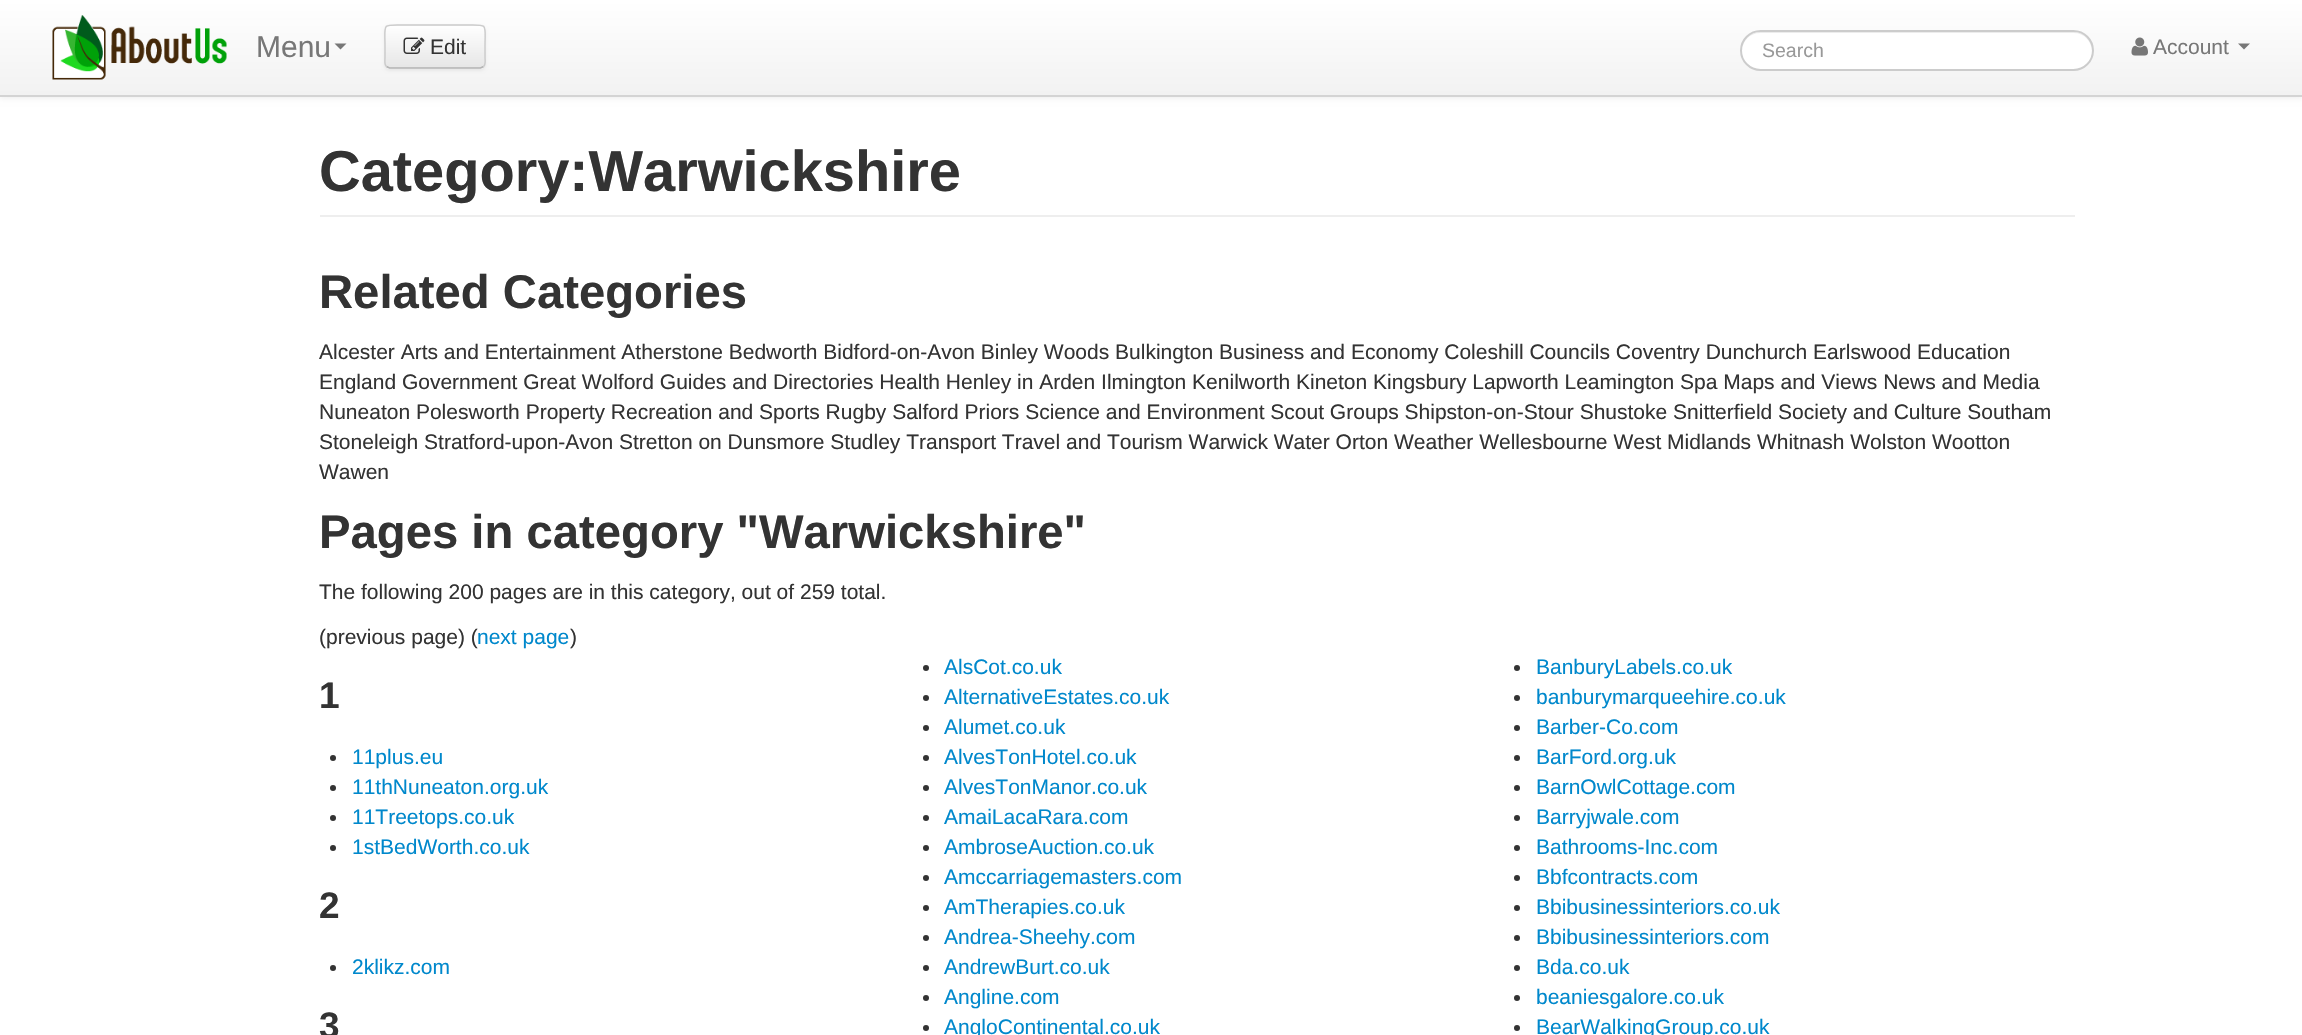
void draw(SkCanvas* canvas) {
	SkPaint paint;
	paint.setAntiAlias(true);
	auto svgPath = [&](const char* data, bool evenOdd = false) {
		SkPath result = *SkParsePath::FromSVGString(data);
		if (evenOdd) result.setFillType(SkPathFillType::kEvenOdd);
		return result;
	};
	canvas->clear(0xffffffff);
	paint.setColor(0x12000000);
	paint.setMaskFilter(SkMaskFilter::MakeBlur(kNormal_SkBlurStyle, 3));
	canvas->drawRect(SkRect::MakeXYWH(0, 2, 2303, 96), paint);
	paint.setMaskFilter(nullptr);
	{
		const SkColor colors[] = {0xffffffff, 0xfff2f2f2};
		const float stops[] = {0, 1};
		const SkPoint ends[] = {{1151, 0}, {1151, 95}};
		paint.setShader(SkGradientShader::MakeLinear(ends, colors, stops, 2, SkTileMode::kClamp));
		paint.setAlpha(255);
	}
	canvas->drawRect(SkRect::MakeXYWH(0, 0, 2302, 95), paint);
	paint.setShader(nullptr);
	paint.setColor(0xffd4d4d4);
	canvas->drawRect(SkRect::MakeXYWH(0, 95, 2302, 2), paint);
	canvas->drawImageRect(SkImages::DeferredFromEncodedData(SkData::MakeFromFileName("img1.png")), SkRect::MakeXYWH(52, 15, 175, 65), SkSamplingOptions());
	SkFont f1(fontMgr->matchFamilyStyle("Liberation Sans", SkFontStyle::Normal()), 30);
	f1.setSubpixel(true);
	paint.setColor(0xff777777);
	canvas->drawString("Menu", 256, 57, f1, paint);
	canvas->drawPath(svgPath("M334.5 43.5H346.5L340.5 49.5Z"), paint);
	paint.setColor(0x0d000000);
	paint.setMaskFilter(SkMaskFilter::MakeBlur(kNormal_SkBlurStyle, 1.5));
	canvas->drawRoundRect(SkRect::MakeXYWH(384, 26, 102, 45), 6, 6, paint);
	paint.setMaskFilter(nullptr);
	paint.setColor(0xfff5f5f5);
	canvas->drawRoundRect(SkRect::MakeXYWH(384, 24, 102, 45), 6, 6, paint);
	canvas->save();
	canvas->clipPath(svgPath("M390 24H480C483.5 24 486 26.5 486 30V63C486 66.5 483.5 69 480 69H390C386.5 69 384 66.5 384 63V30C384 26.5 386.5 24 390 24Z"), true);
	{
		const SkColor colors[] = {0xffffffff, 0xffe6e6e6};
		const float stops[] = {0, 1};
		const SkPoint ends[] = {{435, 25}, {435, 68}};
		paint.setShader(SkGradientShader::MakeLinear(ends, colors, stops, 2, SkTileMode::kClamp));
		paint.setAlpha(255);
	}
	canvas->drawRect(SkRect::MakeXYWH(384, 26, 102, 42), paint);
	canvas->restore();
	paint.setShader(nullptr);
	paint.setColor(0x33ffffff);
	canvas->drawPath(svgPath("M390 27H480C482 27 484 29 484 32V64L483 67C484 66 485 64 485 63V31C485 28 483 26 480 26H391C388 26 386 28 386 31V32C386 29 388 27 390 27Z"), paint);
	paint.setStroke(true);
	paint.setStrokeWidth(1.5);
	paint.setColor(0xffb3b3b3);
	canvas->drawPath(svgPath("M483.5 66.5L480.5 68H389.5L386.5 66.5"), paint);
	paint.setColor(0xffcccccc);
	canvas->drawPath(svgPath("M386.5 66.5C384 64.5 385 60.5 385 57.5V46.5C385 22.5 381 25 405 25H465C489 25 485 22.5 485 46.5V57.5C485 60.5 486 64.5 483.5 66.5"), paint);
	canvas->drawImageRect(SkImages::DeferredFromEncodedData(SkData::MakeFromFileName("img2.png")), SkRect::MakeXYWH(403, 37, 22, 17), SkSamplingOptions());
	SkFont f2(fontMgr->matchFamilyStyle("Liberation Sans", SkFontStyle::Normal()), 21);
	f2.setSubpixel(true);
	paint.setStroke(false);
	paint.setColor(0xff333333);
	canvas->drawString("Edit", 430, 54, f2, paint);
	paint.setColor(0xffffffff);
	canvas->drawRoundRect(SkRect::MakeXYWH(1740, 30, 354, 41), 20.5, 20.5, paint);
	paint.setColor(0xffececec);
	canvas->drawPath(svgPath("M1760 33H2074C2084 33 2092 41 2092 52C2092 56 2091 59 2089 62C2092 59 2093 55 2093 50C2093 40 2085 32 2074 32H1760C1750 32 1742 40 1742 50V51C1742 41 1750 33 1760 33Z"), paint);
	paint.setStroke(true);
	paint.setStrokeWidth(2);
	paint.setColor(0xffcccccc);
	canvas->drawRoundRect(SkRect::MakeXYWH(1741, 31, 352, 39), 19.5, 19.5, paint);
	SkFont f3(fontMgr->matchFamilyStyle("Liberation Sans", SkFontStyle::Normal()), 19.5);
	f3.setSubpixel(true);
	paint.setStroke(false);
	paint.setColor(0xff999999);
	canvas->drawString("Search", 1762, 57, f3, paint);
	canvas->drawImageRect(SkImages::DeferredFromEncodedData(SkData::MakeFromFileName("img3.png")), SkRect::MakeXYWH(2131, 37, 17, 19), SkSamplingOptions());
	paint.setColor(0xff777777);
	canvas->drawString("Account", 2153, 54, f2, paint);
	canvas->drawPath(svgPath("M2238 43.5H2250L2244 49.5Z"), paint);
	paint.setColor(0xffeeeeee);
	canvas->drawRect(SkRect::MakeXYWH(320, 215, 1755, 2), paint);
	SkFont f4(fontMgr->matchFamilyStyle("Liberation Sans", SkFontStyle::Bold()), 57.75);
	f4.setSubpixel(true);
	paint.setColor(0xff333333);
	canvas->drawString("Category:Warwickshire", 319, 191, f4, paint);
	SkFont f5(fontMgr->matchFamilyStyle("Liberation Sans", SkFontStyle::Bold()), 47.25);
	f5.setSubpixel(true);
	canvas->drawString("Related Categories", 319, 308, f5, paint);
	canvas->drawString("Alcester Arts and Entertainment Atherstone Bedworth Bidford-on-Avon Binley Woods Bulkington Business and Economy Coleshill Councils Coventry Dunchurch Earlswood Education", 319, 359, f2, paint);
	canvas->drawString("England Government Great Wolford Guides and Directories Health Henley in Arden Ilmington Kenilworth Kineton Kingsbury Lapworth Leamington Spa Maps and Views News and Media", 319, 389, f2, paint);
	canvas->drawString("Nuneaton Polesworth Property Recreation and Sports Rugby Salford Priors Science and Environment Scout Groups Shipston-on-Stour Shustoke Snitterfield Society and Culture Southam", 319, 419, f2, paint);
	canvas->drawString("Stoneleigh Stratford-upon-Avon Stretton on Dunsmore Studley Transport Travel and Tourism Warwick Water Orton Weather Wellesbourne West Midlands Whitnash Wolston Wootton", 319, 449, f2, paint);
	canvas->drawString("Wawen", 319, 479, f2, paint);
	canvas->drawString("Pages in category \"Warwickshire\"", 319, 548, f5, paint);
	canvas->drawString("The following 200 pages are in this category, out of 259 total.", 319, 599, f2, paint);
	canvas->drawString("(previous page) (", 319, 644, f2, paint);
	paint.setColor(0xff0088cc);
	canvas->drawString("next page", 477, 644, f2, paint);
	paint.setColor(0xff333333);
	canvas->drawString(")", 570, 644, f2, paint);
	SkFont f6(fontMgr->matchFamilyStyle("Liberation Sans", SkFontStyle::Bold()), 37);
	f6.setSubpixel(true);
	canvas->drawString("1", 319, 708, f6, paint);
	canvas->drawCircle(333, 758, 3, paint);
	paint.setColor(0xff0088cc);
	canvas->drawString("11plus.eu", 352, 764, f2, paint);
	paint.setColor(0xff333333);
	canvas->drawCircle(333, 788, 3, paint);
	paint.setColor(0xff0088cc);
	canvas->drawString("11thNuneaton.org.uk", 352, 794, f2, paint);
	paint.setColor(0xff333333);
	canvas->drawCircle(333, 818, 3, paint);
	paint.setColor(0xff0088cc);
	canvas->drawString("11Treetops.co.uk", 352, 824, f2, paint);
	paint.setColor(0xff333333);
	canvas->drawCircle(333, 848, 3, paint);
	paint.setColor(0xff0088cc);
	canvas->drawString("1stBedWorth.co.uk", 352, 854, f2, paint);
	paint.setColor(0xff333333);
	canvas->drawCircle(926, 668, 3, paint);
	paint.setColor(0xff0088cc);
	canvas->drawString("AlsCot.co.uk", 944, 674, f2, paint);
	paint.setColor(0xff333333);
	canvas->drawCircle(926, 698, 3, paint);
	paint.setColor(0xff0088cc);
	canvas->drawString("AlternativeEstates.co.uk", 944, 704, f2, paint);
	paint.setColor(0xff333333);
	canvas->drawCircle(926, 728, 3, paint);
	paint.setColor(0xff0088cc);
	canvas->drawString("Alumet.co.uk", 944, 734, f2, paint);
	paint.setColor(0xff333333);
	canvas->drawCircle(926, 758, 3, paint);
	paint.setColor(0xff0088cc);
	canvas->drawString("AlvesTonHotel.co.uk", 944, 764, f2, paint);
	paint.setColor(0xff333333);
	canvas->drawCircle(926, 788, 3, paint);
	paint.setColor(0xff0088cc);
	canvas->drawString("AlvesTonManor.co.uk", 944, 794, f2, paint);
	paint.setColor(0xff333333);
	canvas->drawCircle(926, 818, 3, paint);
	paint.setColor(0xff0088cc);
	canvas->drawString("AmaiLacaRara.com", 944, 824, f2, paint);
	paint.setColor(0xff333333);
	canvas->drawCircle(926, 848, 3, paint);
	paint.setColor(0xff0088cc);
	canvas->drawString("AmbroseAuction.co.uk", 944, 854, f2, paint);
	paint.setColor(0xff333333);
	canvas->drawCircle(926, 878, 3, paint);
	paint.setColor(0xff0088cc);
	canvas->drawString("Amccarriagemasters.com", 944, 884, f2, paint);
	paint.setColor(0xff333333);
	canvas->drawCircle(926, 908, 3, paint);
	paint.setColor(0xff0088cc);
	canvas->drawString("AmTherapies.co.uk", 944, 914, f2, paint);
	paint.setColor(0xff333333);
	canvas->drawCircle(926, 938, 3, paint);
	paint.setColor(0xff0088cc);
	canvas->drawString("Andrea-Sheehy.com", 944, 944, f2, paint);
	paint.setColor(0xff333333);
	canvas->drawCircle(926, 968, 3, paint);
	paint.setColor(0xff0088cc);
	canvas->drawString("AndrewBurt.co.uk", 944, 974, f2, paint);
	paint.setColor(0xff333333);
	canvas->drawCircle(926, 998, 3, paint);
	paint.setColor(0xff0088cc);
	canvas->drawString("Angline.com", 944, 1004, f2, paint);
	paint.setColor(0xff333333);
	canvas->drawCircle(926, 1028, 3, paint);
	paint.setColor(0xff0088cc);
	canvas->drawString("AngloContinental.co.uk", 944, 1034, f2, paint);
	paint.setColor(0xff333333);
	canvas->drawCircle(1517, 668, 3, paint);
	paint.setColor(0xff0088cc);
	canvas->drawString("BanburyLabels.co.uk", 1536, 674, f2, paint);
	paint.setColor(0xff333333);
	canvas->drawCircle(1517, 698, 3, paint);
	paint.setColor(0xff0088cc);
	canvas->drawString("banburymarqueehire.co.uk", 1536, 704, f2, paint);
	paint.setColor(0xff333333);
	canvas->drawCircle(1517, 728, 3, paint);
	paint.setColor(0xff0088cc);
	canvas->drawString("Barber-Co.com", 1536, 734, f2, paint);
	paint.setColor(0xff333333);
	canvas->drawCircle(1517, 758, 3, paint);
	paint.setColor(0xff0088cc);
	canvas->drawString("BarFord.org.uk", 1536, 764, f2, paint);
	paint.setColor(0xff333333);
	canvas->drawCircle(1517, 788, 3, paint);
	paint.setColor(0xff0088cc);
	canvas->drawString("BarnOwlCottage.com", 1536, 794, f2, paint);
	paint.setColor(0xff333333);
	canvas->drawCircle(1517, 818, 3, paint);
	paint.setColor(0xff0088cc);
	canvas->drawString("Barryjwale.com", 1536, 824, f2, paint);
	paint.setColor(0xff333333);
	canvas->drawCircle(1517, 848, 3, paint);
	paint.setColor(0xff0088cc);
	canvas->drawString("Bathrooms-Inc.com", 1536, 854, f2, paint);
	paint.setColor(0xff333333);
	canvas->drawCircle(1517, 878, 3, paint);
	paint.setColor(0xff0088cc);
	canvas->drawString("Bbfcontracts.com", 1536, 884, f2, paint);
	paint.setColor(0xff333333);
	canvas->drawCircle(1517, 908, 3, paint);
	paint.setColor(0xff0088cc);
	canvas->drawString("Bbibusinessinteriors.co.uk", 1536, 914, f2, paint);
	paint.setColor(0xff333333);
	canvas->drawCircle(1517, 938, 3, paint);
	paint.setColor(0xff0088cc);
	canvas->drawString("Bbibusinessinteriors.com", 1536, 944, f2, paint);
	paint.setColor(0xff333333);
	canvas->drawCircle(1517, 968, 3, paint);
	paint.setColor(0xff0088cc);
	canvas->drawString("Bda.co.uk", 1536, 974, f2, paint);
	paint.setColor(0xff333333);
	canvas->drawCircle(1517, 998, 3, paint);
	paint.setColor(0xff0088cc);
	canvas->drawString("beaniesgalore.co.uk", 1536, 1004, f2, paint);
	paint.setColor(0xff333333);
	canvas->drawCircle(1517, 1028, 3, paint);
	paint.setColor(0xff0088cc);
	canvas->drawString("BearWalkingGroup.co.uk", 1536, 1034, f2, paint);
	paint.setColor(0xff333333);
	canvas->drawString("2", 319, 918, f6, paint);
	canvas->drawCircle(333, 968, 3, paint);
	paint.setColor(0xff0088cc);
	canvas->drawString("2klikz.com", 352, 974, f2, paint);
	paint.setColor(0xff333333);
	canvas->drawString("3", 319, 1038, f6, paint);
}
